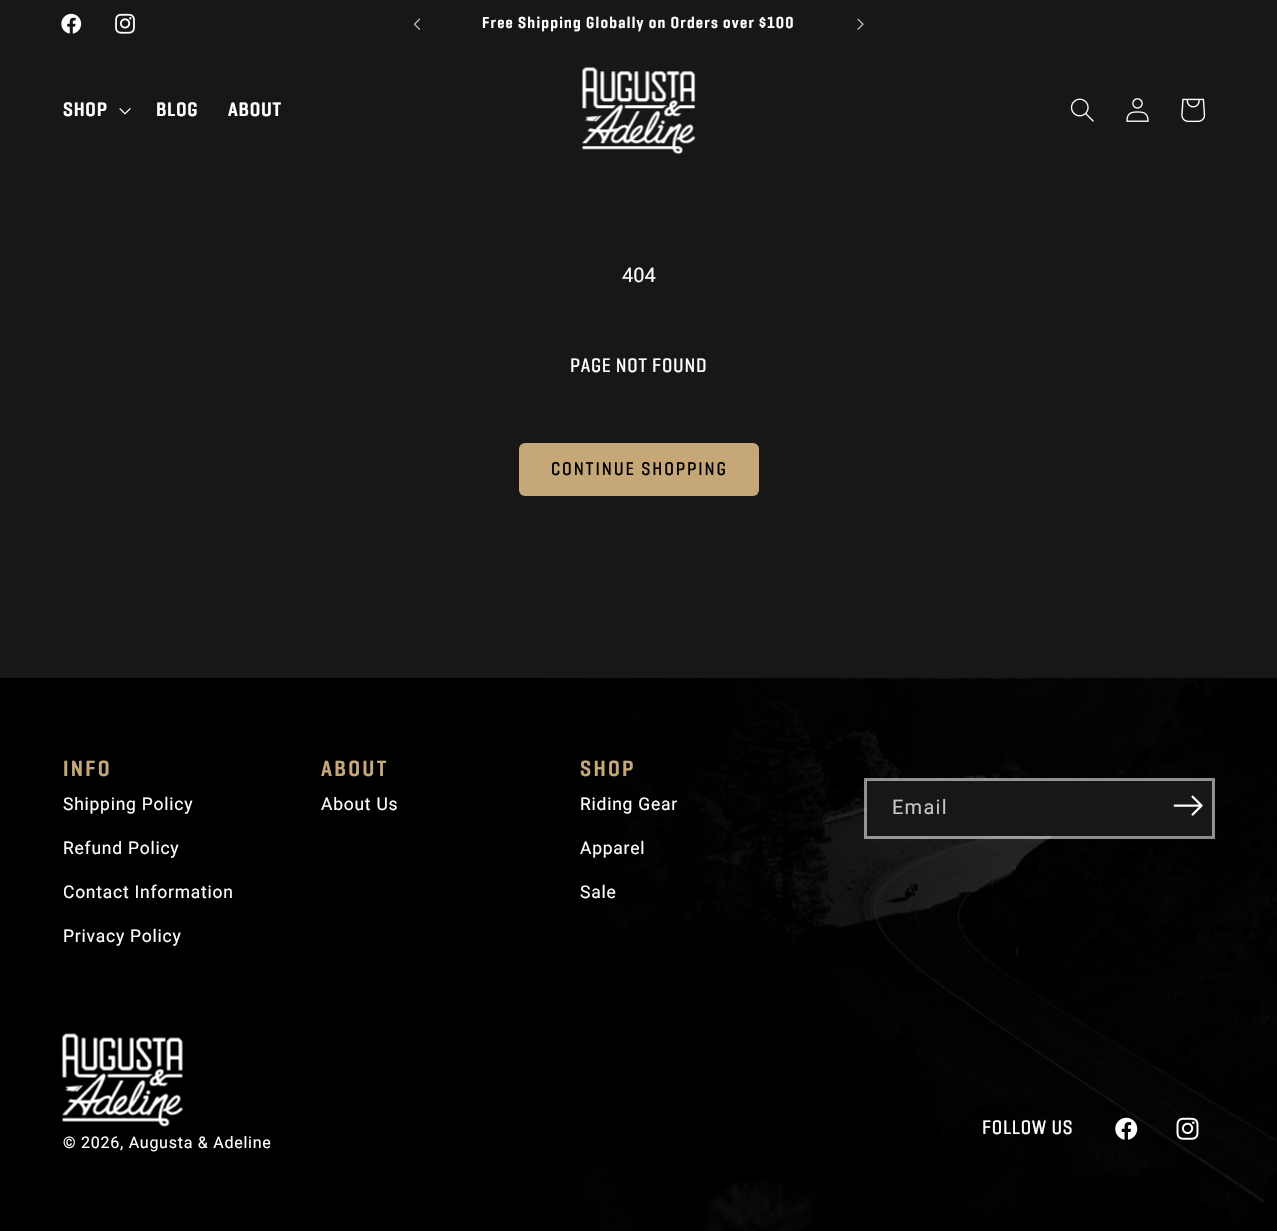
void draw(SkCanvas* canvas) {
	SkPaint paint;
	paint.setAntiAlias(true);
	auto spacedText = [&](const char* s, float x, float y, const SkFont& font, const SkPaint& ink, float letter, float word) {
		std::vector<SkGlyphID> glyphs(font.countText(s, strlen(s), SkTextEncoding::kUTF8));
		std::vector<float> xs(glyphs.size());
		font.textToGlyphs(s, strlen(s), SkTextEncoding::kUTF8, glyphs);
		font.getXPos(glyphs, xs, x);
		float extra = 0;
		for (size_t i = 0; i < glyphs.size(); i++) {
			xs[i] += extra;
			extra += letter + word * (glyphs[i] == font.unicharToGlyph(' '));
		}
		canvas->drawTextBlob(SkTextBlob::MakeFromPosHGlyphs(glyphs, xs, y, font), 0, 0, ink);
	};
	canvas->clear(0xff171717);
	canvas->drawImageRect(SkImages::DeferredFromEncodedData(SkData::MakeFromFileName("img1.png")), SkRect::MakeXYWH(61, 13, 21, 21), SkSamplingOptions());
	canvas->drawImageRect(SkImages::DeferredFromEncodedData(SkData::MakeFromFileName("img2.png")), SkRect::MakeXYWH(115, 13, 20, 21), SkSamplingOptions());
	canvas->drawImageRect(SkImages::DeferredFromEncodedData(SkData::MakeFromFileName("img3.png")), SkRect::MakeXYWH(413, 18, 7, 12), SkSamplingOptions());
	SkFont f1(fontMgr->matchFamilyStyle("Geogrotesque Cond", SkFontStyle(600, SkFontStyle::kNormal_Width, SkFontStyle::kUpright_Slant)), 16.25);
	f1.setSubpixel(true);
	paint.setColor(0xffffffff);
	spacedText("Free Shipping Globally on Orders over $100", 482, 28, f1, paint, 1.25, 0);
	canvas->drawImageRect(SkImages::DeferredFromEncodedData(SkData::MakeFromFileName("img4.png")), SkRect::MakeXYWH(857, 18, 7, 12), SkSamplingOptions());
	SkFont f2(fontMgr->matchFamilyStyle("Geogrotesque Cond", SkFontStyle(600, SkFontStyle::kNormal_Width, SkFontStyle::kUpright_Slant)), 20);
	f2.setSubpixel(true);
	spacedText("SHOP", 63, 116, f2, paint, 0.75, 0);
	canvas->drawImageRect(SkImages::DeferredFromEncodedData(SkData::MakeFromFileName("img5.png")), SkRect::MakeXYWH(119, 108, 12, 7), SkSamplingOptions());
	spacedText("BLOG", 156, 116, f2, paint, 0.75, 0);
	spacedText("ABOUT", 228, 116, f2, paint, 0.75, 0);
	canvas->drawImageRect(SkImages::DeferredFromEncodedData(SkData::MakeFromFileName("img6.png")), SkRect::MakeXYWH(582, 67, 114, 88), SkSamplingOptions());
	canvas->drawImageRect(SkImages::DeferredFromEncodedData(SkData::MakeFromFileName("img7.png")), SkRect::MakeXYWH(1070, 98, 24, 24), SkSamplingOptions());
	canvas->drawImageRect(SkImages::DeferredFromEncodedData(SkData::MakeFromFileName("img8.png")), SkRect::MakeXYWH(1126, 98, 23, 24), SkSamplingOptions());
	canvas->drawImageRect(SkImages::DeferredFromEncodedData(SkData::MakeFromFileName("img9.png")), SkRect::MakeXYWH(1181, 98, 25, 24), SkSamplingOptions());
	SkFont f3(fontMgr->matchFamilyStyle("Roboto", SkFontStyle::Normal()), 20);
	f3.setSubpixel(true);
	canvas->drawString("404", 622, 282, f3, paint);
	SkFont f4(fontMgr->matchFamilyStyle("Geogrotesque Cond", SkFontStyle(500, SkFontStyle::kNormal_Width, SkFontStyle::kUpright_Slant)), 20);
	f4.setSubpixel(true);
	spacedText("PAGE NOT FOUND", 570, 372, f4, paint, 0.75, 0);
	paint.setColor(0xffc6a778);
	canvas->drawRoundRect(SkRect::MakeXYWH(519, 443, 240, 53), 6, 6, paint);
	SkFont f5(fontMgr->matchFamilyStyle("Geogrotesque Cond", SkFontStyle(500, SkFontStyle::kNormal_Width, SkFontStyle::kUpright_Slant)), 18.75);
	f5.setSubpixel(true);
	paint.setColor(0xff000000);
	spacedText("CONTINUE SHOPPING", 551, 475, f5, paint, 1.9, 0);
	canvas->drawRect(SkRect::MakeXYWH(0, 678, 1277, 553), paint);
	canvas->drawImageRect(SkImages::DeferredFromEncodedData(SkData::MakeFromFileName("img10.png")), SkRect::MakeXYWH(550, 678, 727, 553), SkSamplingOptions());
	{
		const SkColor colors[] = {0x00000000, 0xff000000};
		const float stops[] = {0, 1};
		const SkPoint ends[] = {{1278, 954}, {546, 954}};
		paint.setShader(SkGradientShader::MakeLinear(ends, colors, stops, 2, SkTileMode::kClamp));
		paint.setAlpha(255);
	}
	canvas->drawRect(SkRect::MakeXYWH(550, 678, 640, 553), paint);
	SkFont f6(fontMgr->matchFamilyStyle("Geogrotesque Cond", SkFontStyle(600, SkFontStyle::kNormal_Width, SkFontStyle::kUpright_Slant)), 22.5);
	f6.setSubpixel(true);
	paint.setShader(nullptr);
	paint.setColor(0xffc6a778);
	spacedText("INFO", 63, 776, f6, paint, 2.25, 0);
	SkFont f7(fontMgr->matchFamilyStyle("Roboto", SkFontStyle::Normal()), 17.5);
	f7.setSubpixel(true);
	paint.setColor(0xffffffff);
	spacedText("Shipping Policy", 63, 810, f7, paint, 0.75, 0);
	spacedText("Refund Policy", 63, 854, f7, paint, 0.75, 0);
	spacedText("Contact Information", 63, 898, f7, paint, 0.75, 0);
	spacedText("Privacy Policy", 63, 942, f7, paint, 0.75, 0);
	paint.setColor(0xffc6a778);
	spacedText("ABOUT", 321, 776, f6, paint, 2.25, 0);
	paint.setColor(0xffffffff);
	spacedText("About Us", 321, 810, f7, paint, 0.75, 0);
	paint.setColor(0xffc6a778);
	spacedText("SHOP", 580, 776, f6, paint, 2.25, 0);
	paint.setColor(0xffffffff);
	spacedText("Riding Gear", 580, 810, f7, paint, 0.75, 0);
	spacedText("Apparel", 580, 854, f7, paint, 0.75, 0);
	spacedText("Sale", 580, 898, f7, paint, 0.75, 0);
	paint.setColor(0xff171717);
	canvas->drawRect(SkRect::MakeXYWH(866, 780, 347, 56), paint);
	canvas->drawImageRect(SkImages::DeferredFromEncodedData(SkData::MakeFromFileName("img11.png")), SkRect::MakeXYWH(1173, 795, 30, 21), SkSamplingOptions());
	paint.setStroke(true);
	paint.setStrokeWidth(3);
	paint.setColor(0x8cffffff);
	canvas->drawRect(SkRect::MakeXYWH(865.5, 779.5, 348, 58), paint);
	paint.setStroke(false);
	paint.setColor(0xffc5c5c5);
	spacedText("Email", 892, 814, f3, paint, 1.25, 0);
	paint.setColor(0xffffffff);
	spacedText("FOLLOW US", 982, 1134, f4, paint, 0.75, 0);
	canvas->drawImageRect(SkImages::DeferredFromEncodedData(SkData::MakeFromFileName("img12.png")), SkRect::MakeXYWH(1115, 1117, 23, 23), SkSamplingOptions());
	canvas->drawImageRect(SkImages::DeferredFromEncodedData(SkData::MakeFromFileName("img13.png")), SkRect::MakeXYWH(1176, 1117, 23, 23), SkSamplingOptions());
	canvas->drawImageRect(SkImages::DeferredFromEncodedData(SkData::MakeFromFileName("img14.png")), SkRect::MakeXYWH(62, 1033, 121, 94), SkSamplingOptions());
	SkFont f8(fontMgr->matchFamilyStyle("Roboto", SkFontStyle::Normal()), 16);
	f8.setSubpixel(true);
	spacedText("© 2026, Augusta & Adeline", 63, 1148, f8, paint, 0.75, 0);
}
